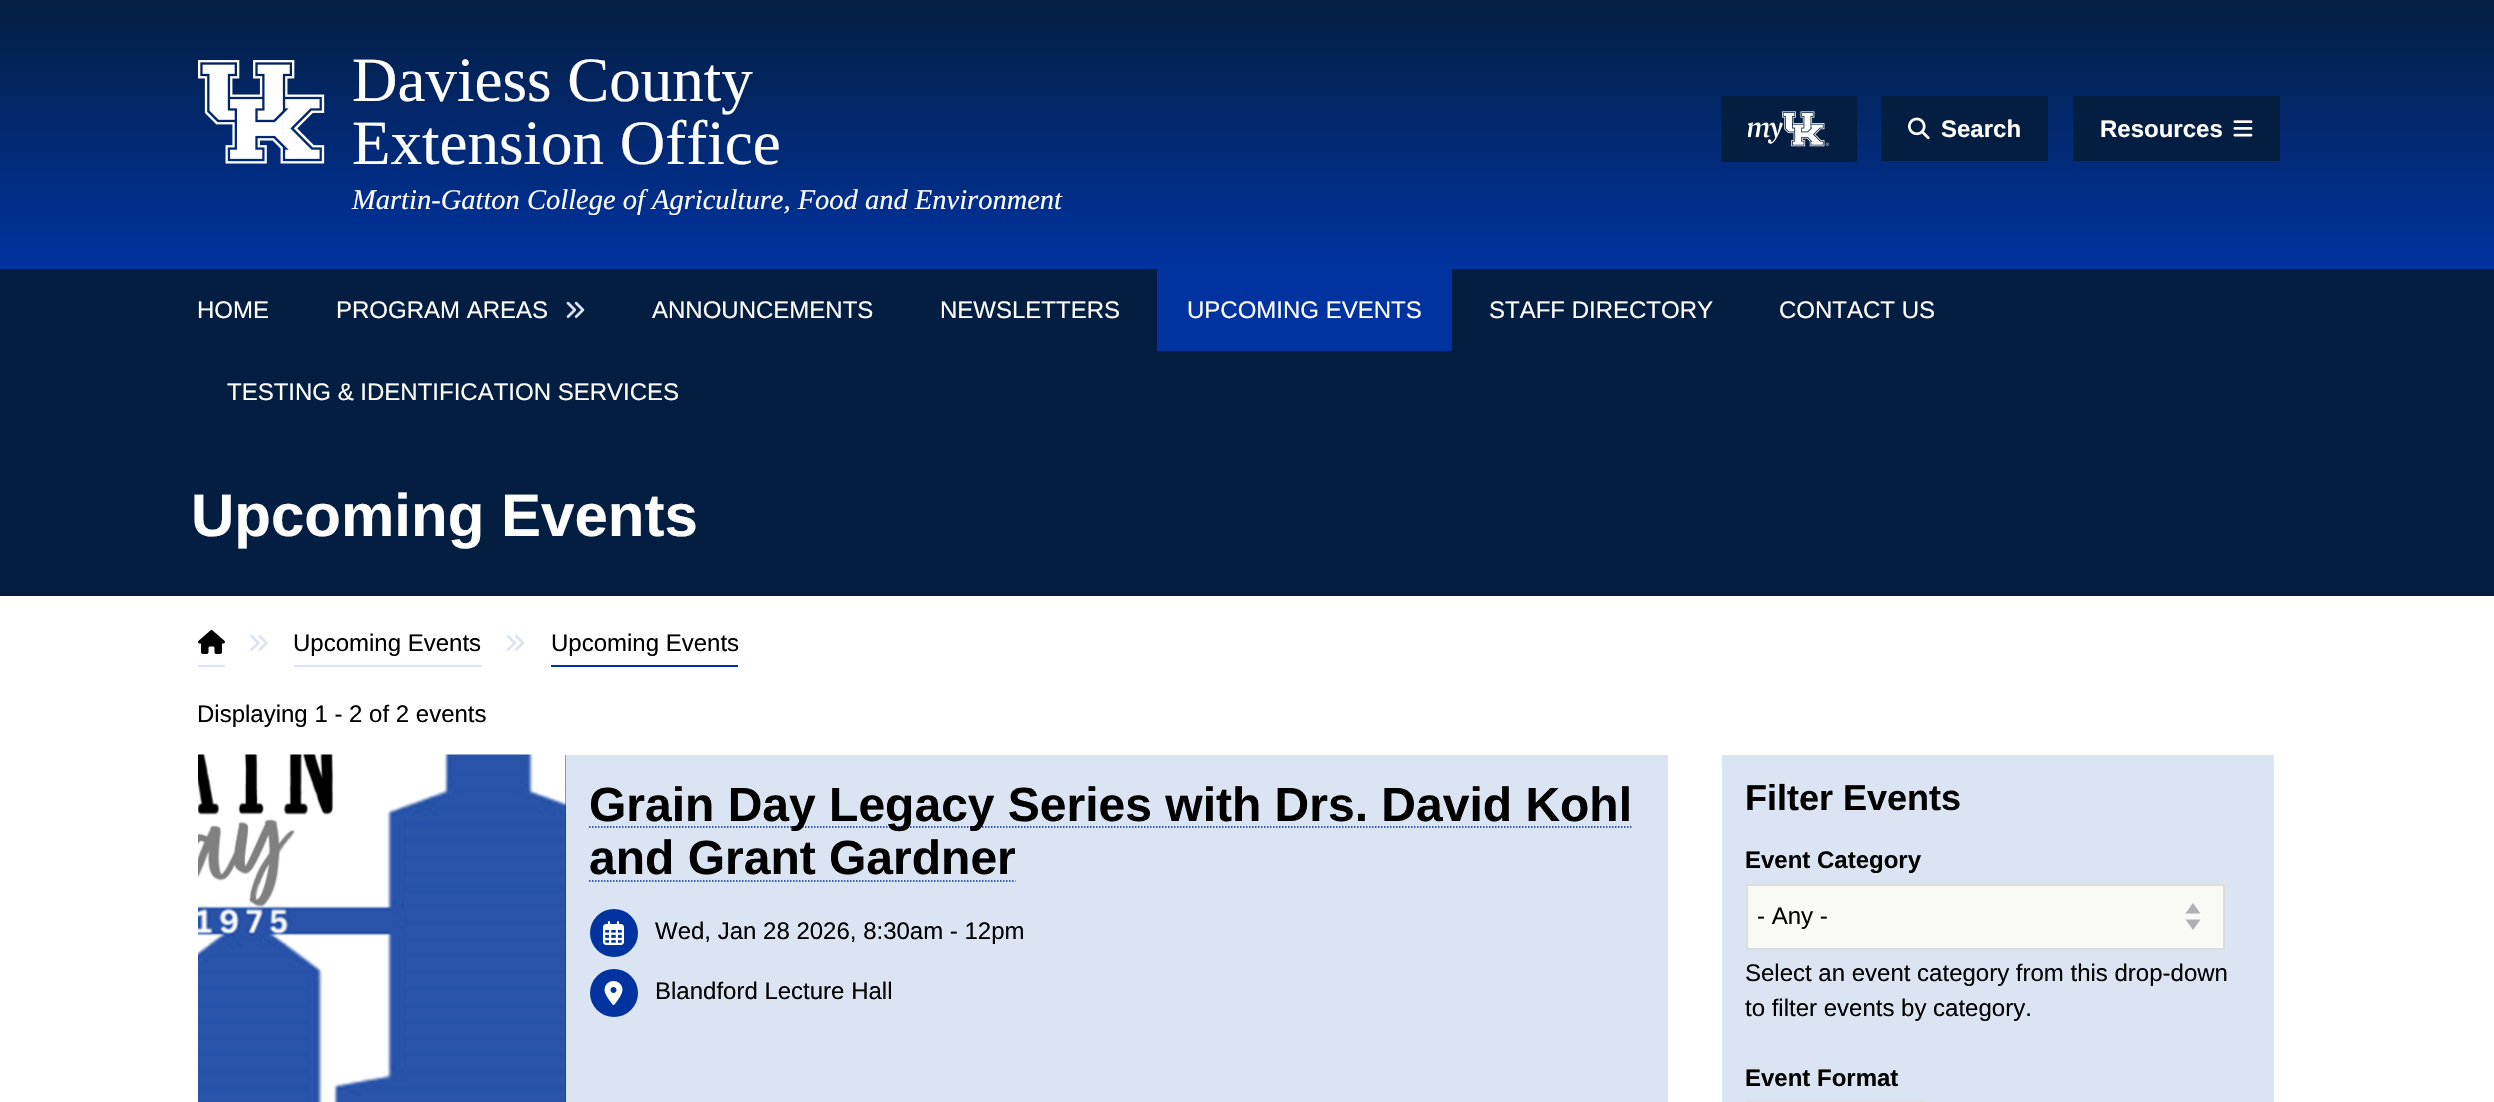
void draw(SkCanvas* canvas) {
	SkPaint paint;
	paint.setAntiAlias(true);
	auto svgPath = [&](const char* data, bool evenOdd = false) {
		SkPath result = *SkParsePath::FromSVGString(data);
		if (evenOdd) result.setFillType(SkPathFillType::kEvenOdd);
		return result;
	};
	canvas->clear(0xffffffff);
	{
		const SkColor colors[] = {0xff041e42, 0xff0033a0};
		const float stops[] = {0, 1};
		const SkPoint ends[] = {{1247, 0}, {1247, 269}};
		paint.setShader(SkGradientShader::MakeLinear(ends, colors, stops, 2, SkTileMode::kClamp));
		paint.setAlpha(255);
	}
	canvas->drawRect(SkRect::MakeXYWH(0, 0, 2494, 269), paint);
	canvas->drawImageRect(SkImages::DeferredFromEncodedData(SkData::MakeFromFileName("img1.png")), SkRect::MakeXYWH(198, 60, 127, 104), SkSamplingOptions());
	SkFont f1(fontMgr->matchFamilyStyle("Liberation Serif", SkFontStyle::Normal()), 63);
	f1.setSubpixel(true);
	paint.setShader(nullptr);
	paint.setColor(0xffffffff);
	canvas->drawString("Daviess County", 352, 101, f1, paint);
	canvas->drawString("Extension Office", 352, 164, f1, paint);
	SkFont f2(fontMgr->matchFamilyStyle("Liberation Serif", SkFontStyle::Italic()), 28.5);
	f2.setSubpixel(true);
	canvas->drawString("Martin-Gatton College of Agriculture, Food and Environment", 352, 209, f2, paint);
	paint.setColor(0xff041e42);
	canvas->drawRect(SkRect::MakeXYWH(1721, 96, 136, 66), paint);
	canvas->drawImageRect(SkImages::DeferredFromEncodedData(SkData::MakeFromFileName("img2.png")), SkRect::MakeXYWH(1748, 111, 82, 36), SkSamplingOptions());
	canvas->drawRect(SkRect::MakeXYWH(1881, 96, 167, 65), paint);
	canvas->drawImageRect(SkImages::DeferredFromEncodedData(SkData::MakeFromFileName("img3.png")), SkRect::MakeXYWH(1908, 117, 22, 23), SkSamplingOptions());
	SkFont f3(fontMgr->matchFamilyStyle("Liberation Sans", SkFontStyle::Bold()), 24);
	f3.setSubpixel(true);
	paint.setColor(0xffffffff);
	canvas->drawString("Search", 1941, 137, f3, paint);
	paint.setColor(0xff041e42);
	canvas->drawRect(SkRect::MakeXYWH(2073, 96, 207, 65), paint);
	paint.setColor(0xffffffff);
	canvas->drawString("Resources", 2100, 137, f3, paint);
	canvas->drawImageRect(SkImages::DeferredFromEncodedData(SkData::MakeFromFileName("img4.png")), SkRect::MakeXYWH(2233, 120, 20, 17), SkSamplingOptions());
	paint.setColor(0xff041e42);
	canvas->drawRect(SkRect::MakeXYWH(0, 269, 2494, 327), paint);
	SkFont f4(fontMgr->matchFamilyStyle("Liberation Sans", SkFontStyle::Normal()), 24);
	f4.setSubpixel(true);
	paint.setColor(0xffffffff);
	canvas->drawString("HOME", 197, 318, f4, paint);
	canvas->drawString("PROGRAM AREAS", 336, 318, f4, paint);
	canvas->drawImageRect(SkImages::DeferredFromEncodedData(SkData::MakeFromFileName("img5.png")), SkRect::MakeXYWH(566, 301, 19, 17), SkSamplingOptions());
	canvas->drawString("ANNOUNCEMENTS", 652, 318, f4, paint);
	canvas->drawString("NEWSLETTERS", 940, 318, f4, paint);
	paint.setColor(0xff0033a0);
	canvas->drawRect(SkRect::MakeXYWH(1157, 269, 295, 82), paint);
	paint.setColor(0xffffffff);
	canvas->drawString("UPCOMING EVENTS", 1187, 318, f4, paint);
	canvas->drawString("STAFF DIRECTORY", 1489, 318, f4, paint);
	canvas->drawString("CONTACT US", 1779, 318, f4, paint);
	canvas->drawString("TESTING & IDENTIFICATION SERVICES", 227, 400, f4, paint);
	SkFont f5(fontMgr->matchFamilyStyle("Liberation Sans", SkFontStyle::Bold()), 60);
	f5.setSubpixel(true);
	canvas->drawString("Upcoming Events", 191, 536, f5, paint);
	paint.setColor(0xffdae4f2);
	canvas->drawRect(SkRect::MakeXYWH(198, 665, 27, 2), paint);
	canvas->drawImageRect(SkImages::DeferredFromEncodedData(SkData::MakeFromFileName("img6.png")), SkRect::MakeXYWH(198, 630, 27, 24), SkSamplingOptions());
	canvas->drawImageRect(SkImages::DeferredFromEncodedData(SkData::MakeFromFileName("img7.png")), SkRect::MakeXYWH(250, 634, 18, 17), SkSamplingOptions());
	paint.setColor(0xff000000);
	canvas->drawString("Upcoming Events", 293, 651, f4, paint);
	paint.setColor(0xffdae4f2);
	canvas->drawRect(SkRect::MakeXYWH(294, 665, 188, 2), paint);
	canvas->drawImageRect(SkImages::DeferredFromEncodedData(SkData::MakeFromFileName("img8.png")), SkRect::MakeXYWH(506, 634, 19, 17), SkSamplingOptions());
	paint.setColor(0xff000000);
	canvas->drawString("Upcoming Events", 551, 651, f4, paint);
	paint.setColor(0xff0033a0);
	canvas->drawRect(SkRect::MakeXYWH(551, 665, 187, 2), paint);
	paint.setColor(0xff000000);
	canvas->drawString("Displaying 1 - 2 of 2 events", 197, 722, f4, paint);
	paint.setColor(0xff0033a0);
	canvas->drawRect(SkRect::MakeXYWH(565, 755, 1, 347), paint);
	canvas->drawImageRect(SkImages::DeferredFromEncodedData(SkData::MakeFromFileName("img9.png")), SkRect::MakeXYWH(198, 754, 368, 348), SkSamplingOptions());
	paint.setColor(0xffdae4f2);
	canvas->drawRect(SkRect::MakeXYWH(566, 755, 1102, 347), paint);
	paint.setStroke(true);
	paint.setStrokeWidth(1.5);
	paint.setColor(0xff0033a0);
	paint.setPathEffect(SkDashPathEffect::Make({{1.5f, 1.5f}}, 0));
	canvas->drawPath(svgPath("M589 827H1632"), paint);
	paint.setPathEffect(nullptr);
	SkFont f6(fontMgr->matchFamilyStyle("Liberation Sans", SkFontStyle::Bold()), 48);
	f6.setSubpixel(true);
	paint.setStroke(false);
	paint.setColor(0xff000000);
	canvas->drawString("Grain Day Legacy Series with Drs. David Kohl", 589, 821, f6, paint);
	canvas->drawString("and Grant Gardner", 589, 874, f6, paint);
	paint.setStroke(true);
	paint.setColor(0xff0033a0);
	paint.setPathEffect(SkDashPathEffect::Make({{1.5f, 1.5f}}, 0));
	canvas->drawPath(svgPath("M589 881H1015.5"), paint);
	paint.setPathEffect(nullptr);
	paint.setStroke(false);
	canvas->drawCircle(614, 933, 24, paint);
	canvas->drawImageRect(SkImages::DeferredFromEncodedData(SkData::MakeFromFileName("img10.png")), SkRect::MakeXYWH(603, 921, 21, 24), SkSamplingOptions());
	paint.setColor(0xff000000);
	canvas->drawString("Wed, Jan 28 2026, 8:30am - 12pm", 655, 939, f4, paint);
	paint.setColor(0xff0033a0);
	canvas->drawCircle(614, 993, 24, paint);
	canvas->drawImageRect(SkImages::DeferredFromEncodedData(SkData::MakeFromFileName("img11.png")), SkRect::MakeXYWH(604, 981, 19, 24), SkSamplingOptions());
	paint.setColor(0xff000000);
	canvas->drawString("Blandford Lecture Hall", 655, 999, f4, paint);
	paint.setColor(0xffdae4f2);
	canvas->drawRect(SkRect::MakeXYWH(1722, 755, 552, 347), paint);
	SkFont f7(fontMgr->matchFamilyStyle("Liberation Sans", SkFontStyle::Bold()), 36);
	f7.setSubpixel(true);
	paint.setColor(0xff000000);
	canvas->drawString("Filter Events", 1745, 810, f7, paint);
	canvas->drawString("Event Category", 1745, 868, f3, paint);
	paint.setColor(0xfff9f9f5);
	canvas->drawRect(SkRect::MakeXYWH(1748, 886, 475, 62), paint);
	paint.setColor(0xffaeb0b5);
	canvas->drawPath(svgPath("M2193 903L2185.5 913.5H2200.5ZM2193 930L2200.5 919.5H2185.5Z"), paint);
	paint.setStroke(true);
	paint.setStrokeWidth(2);
	paint.setColor(0xffdcddde);
	canvas->drawRect(SkRect::MakeXYWH(1747, 885, 477, 64), paint);
	paint.setStroke(false);
	paint.setColor(0xff000000);
	canvas->drawString("- Any -", 1757, 924, f4, paint);
	canvas->drawString("Select an event category from this drop-down", 1745, 981, f4, paint);
	canvas->drawString("to filter events by category.", 1745, 1016, f4, paint);
	canvas->drawString("Event Format", 1745, 1086, f3, paint);
	paint.setStroke(true);
	paint.setColor(0xffdcddde);
	canvas->drawRect(SkRect::MakeXYWH(1747, 1102, 177, 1), paint);
}
